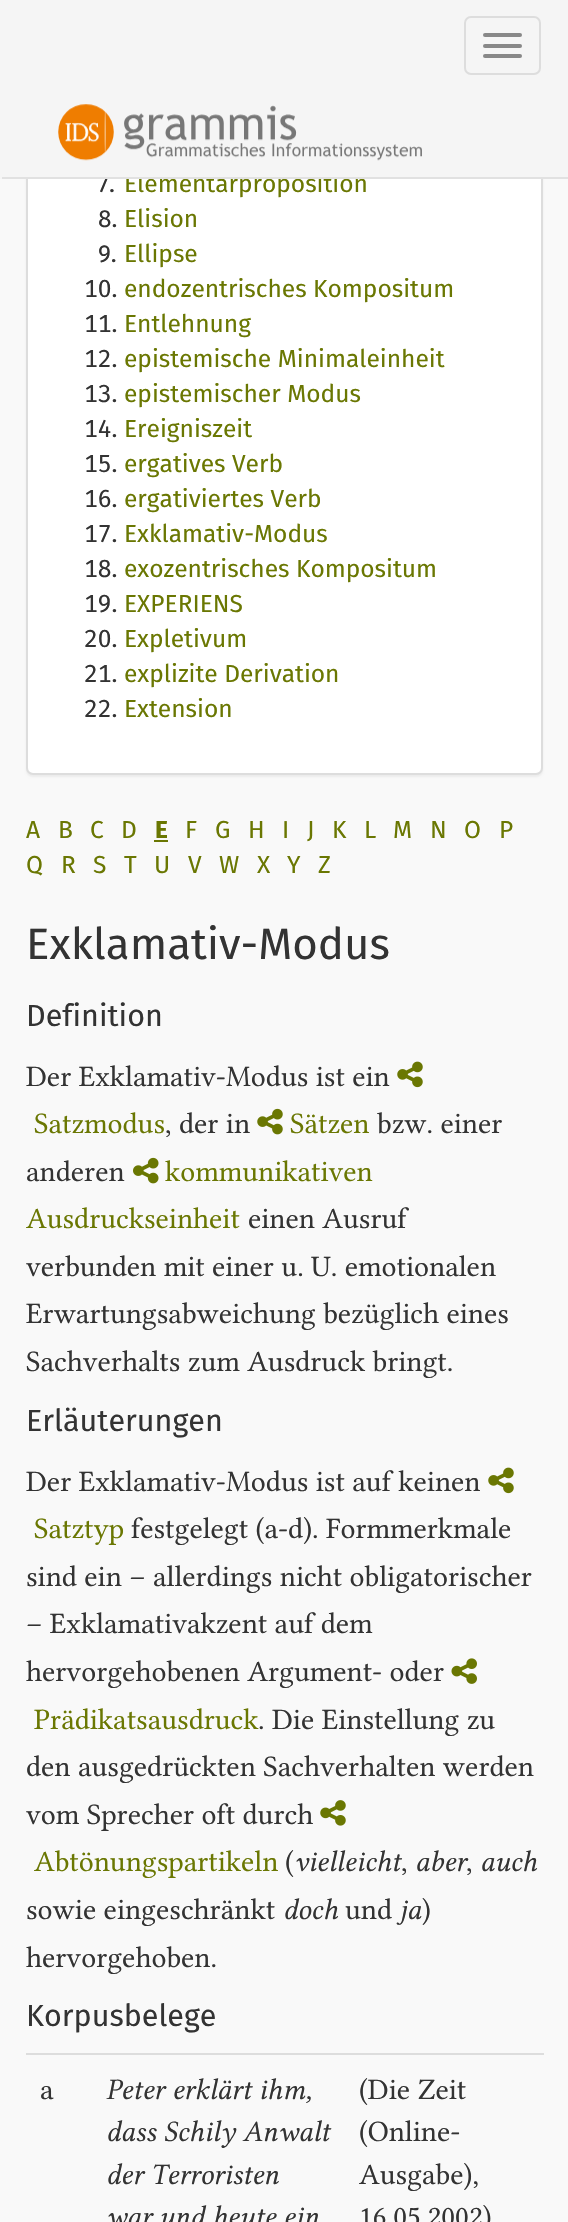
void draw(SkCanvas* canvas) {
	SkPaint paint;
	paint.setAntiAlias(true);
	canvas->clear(0xfff9f9f9);
	paint.setColor(0x0d000000);
	paint.setMaskFilter(SkMaskFilter::MakeBlur(kNormal_SkBlurStyle, 1));
	canvas->drawRoundRect(SkRect::MakeXYWH(26, -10, 517, 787), 7, 7, paint);
	paint.setMaskFilter(nullptr);
	paint.setColor(0xffffffff);
	canvas->drawRoundRect(SkRect::MakeXYWH(27, -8, 515, 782), 6, 6, paint);
	paint.setStroke(true);
	paint.setStrokeWidth(2);
	paint.setColor(0xffdddddd);
	canvas->drawRoundRect(SkRect::MakeXYWH(27, -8, 515, 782), 6, 6, paint);
	SkFont f1(fontMgr->matchFamilyStyle("Fira Sans", SkFontStyle::Normal()), 24.5);
	f1.setSubpixel(true);
	paint.setStroke(false);
	paint.setColor(0xff333333);
	canvas->drawString("7.", 98, 192, f1, paint);
	paint.setColor(0xff6a7702);
	canvas->drawString("Elementarproposition", 124, 192, f1, paint);
	paint.setColor(0xfff5f5f5);
	canvas->drawRect(SkRect::MakeXYWH(2, 0, 566, 177), paint);
	paint.setColor(0xffe1e1e1);
	canvas->drawRect(SkRect::MakeXYWH(0, 177, 568, 2), paint);
	paint.setColor(0xfff5f5f5);
	canvas->drawRect(SkRect::MakeXYWH(0, 0, 2, 179), paint);
	paint.setStroke(true);
	paint.setColor(0xffdddddd);
	canvas->drawRoundRect(SkRect::MakeXYWH(465, 17, 75, 57), 6, 6, paint);
	paint.setStroke(false);
	paint.setColor(0xff888888);
	canvas->drawRoundRect(SkRect::MakeXYWH(483, 33, 39, 4), 2, 2, paint);
	canvas->drawRoundRect(SkRect::MakeXYWH(483, 44, 39, 4), 2, 2, paint);
	canvas->drawRoundRect(SkRect::MakeXYWH(483, 54, 39, 4), 2, 2, paint);
	canvas->drawImageRect(SkImages::DeferredFromEncodedData(SkData::MakeFromFileName("img1.png")), SkRect::MakeXYWH(58, 104, 364, 57), SkSamplingOptions());
	paint.setColor(0xff333333);
	canvas->drawString("8.", 98, 227, f1, paint);
	paint.setColor(0xff6a7702);
	canvas->drawString("Elision", 124, 227, f1, paint);
	paint.setColor(0xff333333);
	canvas->drawString("9.", 98, 262, f1, paint);
	paint.setColor(0xff6a7702);
	canvas->drawString("Ellipse", 124, 262, f1, paint);
	SkFont f2(fontMgr->matchFamilyStyle("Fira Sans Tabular", SkFontStyle::Normal()), 24.5);
	f2.setSubpixel(true);
	paint.setColor(0xff333333);
	canvas->drawString("10.", 84, 297, f2, paint);
	paint.setColor(0xff6a7702);
	canvas->drawString("endozentrisches Kompositum", 124, 297, f1, paint);
	paint.setColor(0xff333333);
	canvas->drawString("11.", 84, 332, f2, paint);
	paint.setColor(0xff6a7702);
	canvas->drawString("Entlehnung", 124, 332, f1, paint);
	paint.setColor(0xff333333);
	canvas->drawString("12.", 84, 367, f2, paint);
	paint.setColor(0xff6a7702);
	canvas->drawString("epistemische Minimaleinheit", 124, 367, f1, paint);
	paint.setColor(0xff333333);
	canvas->drawString("13.", 84, 402, f2, paint);
	paint.setColor(0xff6a7702);
	canvas->drawString("epistemischer Modus", 124, 402, f1, paint);
	paint.setColor(0xff333333);
	canvas->drawString("14.", 84, 437, f2, paint);
	paint.setColor(0xff6a7702);
	canvas->drawString("Ereigniszeit", 124, 437, f1, paint);
	paint.setColor(0xff333333);
	canvas->drawString("15.", 84, 472, f2, paint);
	paint.setColor(0xff6a7702);
	canvas->drawString("ergatives Verb", 124, 472, f1, paint);
	paint.setColor(0xff333333);
	canvas->drawString("16.", 84, 507, f2, paint);
	paint.setColor(0xff6a7702);
	canvas->drawString("ergativiertes Verb", 124, 507, f1, paint);
	paint.setColor(0xff333333);
	canvas->drawString("17.", 84, 542, f2, paint);
	paint.setColor(0xff6a7702);
	canvas->drawString("Exklamativ-Modus", 124, 542, f1, paint);
	paint.setColor(0xff333333);
	canvas->drawString("18.", 84, 577, f2, paint);
	paint.setColor(0xff6a7702);
	canvas->drawString("exozentrisches Kompositum", 124, 577, f1, paint);
	paint.setColor(0xff333333);
	canvas->drawString("19.", 84, 612, f2, paint);
	paint.setColor(0xff6a7702);
	canvas->drawString("EXPERIENS", 124, 612, f1, paint);
	paint.setColor(0xff333333);
	canvas->drawString("20.", 84, 647, f2, paint);
	paint.setColor(0xff6a7702);
	canvas->drawString("Expletivum", 124, 647, f1, paint);
	paint.setColor(0xff333333);
	canvas->drawString("21.", 84, 682, f2, paint);
	paint.setColor(0xff6a7702);
	canvas->drawString("explizite Derivation", 124, 682, f1, paint);
	paint.setColor(0xff333333);
	canvas->drawString("22.", 84, 717, f2, paint);
	paint.setColor(0xff6a7702);
	canvas->drawString("Extension", 124, 717, f1, paint);
	canvas->drawString("A", 26, 838, f1, paint);
	canvas->drawString("B", 58, 838, f1, paint);
	canvas->drawString("C", 90, 838, f1, paint);
	canvas->drawString("D", 121, 838, f1, paint);
	SkFont f3(fontMgr->matchFamilyStyle("Fira Sans", SkFontStyle::Bold()), 24.5);
	f3.setSubpixel(true);
	canvas->drawString("E", 155, 838, f3, paint);
	canvas->drawRect(SkRect::MakeXYWH(154, 840, 14, 2), paint);
	canvas->drawString("F", 185, 838, f1, paint);
	canvas->drawString("G", 215, 838, f1, paint);
	canvas->drawString("H", 248, 838, f1, paint);
	canvas->drawString("I", 282, 838, f1, paint);
	canvas->drawString("J", 307, 838, f1, paint);
	canvas->drawString("K", 332, 838, f1, paint);
	canvas->drawString("L", 364, 838, f1, paint);
	canvas->drawString("M", 393, 838, f1, paint);
	canvas->drawString("N", 430, 838, f1, paint);
	canvas->drawString("O", 464, 838, f1, paint);
	canvas->drawString("P", 499, 838, f1, paint);
	canvas->drawString("Q", 26, 873, f1, paint);
	canvas->drawString("R", 61, 873, f1, paint);
	canvas->drawString("S", 93, 873, f1, paint);
	canvas->drawString("T", 124, 873, f1, paint);
	canvas->drawString("U", 154, 873, f1, paint);
	canvas->drawString("V", 188, 873, f1, paint);
	canvas->drawString("W", 219, 873, f1, paint);
	canvas->drawString("X", 257, 873, f1, paint);
	canvas->drawString("Y", 287, 873, f1, paint);
	canvas->drawString("Z", 318, 873, f1, paint);
	SkFont f4(fontMgr->matchFamilyStyle("Fira Sans", SkFontStyle::Normal()), 43.75);
	f4.setSubpixel(true);
	paint.setColor(0xff333333);
	canvas->drawString("Exklamativ-Modus", 26, 959, f4, paint);
	SkFont f5(fontMgr->matchFamilyStyle("Fira Sans", SkFontStyle::Normal()), 30.5);
	f5.setSubpixel(true);
	canvas->drawString("Definition", 26, 1026, f5, paint);
	SkFont f6(fontMgr->matchFamilyStyle("Libertinus Serif", SkFontStyle::Normal()), 29.75);
	f6.setSubpixel(true);
	canvas->drawString("Der Exklamativ-Modus ist ein", 26, 1086, f6, paint);
	canvas->drawImageRect(SkImages::DeferredFromEncodedData(SkData::MakeFromFileName("img2.png")), SkRect::MakeXYWH(397, 1061, 26, 27), SkSamplingOptions());
	paint.setColor(0xff6a7702);
	canvas->drawString("Satzmodus", 34, 1133, f6, paint);
	paint.setColor(0xff333333);
	canvas->drawString(", der in", 165, 1133, f6, paint);
	canvas->drawImageRect(SkImages::DeferredFromEncodedData(SkData::MakeFromFileName("img3.png")), SkRect::MakeXYWH(257, 1108, 26, 27), SkSamplingOptions());
	paint.setColor(0xff6a7702);
	canvas->drawString("Sätzen", 290, 1133, f6, paint);
	paint.setColor(0xff333333);
	canvas->drawString("bzw. einer", 377, 1133, f6, paint);
	canvas->drawImageRect(SkImages::DeferredFromEncodedData(SkData::MakeFromFileName("img4.png")), SkRect::MakeXYWH(133, 1157, 26, 27), SkSamplingOptions());
	paint.setColor(0xff6a7702);
	canvas->drawString("kommunikativen", 165, 1181, f6, paint);
	canvas->drawString("Ausdruckseinheit", 26, 1228, f6, paint);
	paint.setColor(0xff333333);
	canvas->drawString("anderen", 26, 1181, f6, paint);
	canvas->drawString("einen Ausruf", 248, 1228, f6, paint);
	canvas->drawString("verbunden mit einer u. U. emotionalen", 26, 1276, f6, paint);
	canvas->drawString("Erwartungsabweichung bezüglich eines", 26, 1323, f6, paint);
	canvas->drawString("Sachverhalts zum Ausdruck bringt.", 26, 1371, f6, paint);
	canvas->drawString("Erläuterungen", 26, 1431, f5, paint);
	canvas->drawString("Der Exklamativ-Modus ist auf keinen", 26, 1491, f6, paint);
	canvas->drawImageRect(SkImages::DeferredFromEncodedData(SkData::MakeFromFileName("img5.png")), SkRect::MakeXYWH(488, 1467, 26, 27), SkSamplingOptions());
	paint.setColor(0xff6a7702);
	canvas->drawString("Satztyp", 34, 1538, f6, paint);
	paint.setColor(0xff333333);
	canvas->drawString("festgelegt (a-d). Formmerkmale", 131, 1538, f6, paint);
	canvas->drawString("sind ein – allerdings nicht obligatorischer", 26, 1586, f6, paint);
	canvas->drawString("– Exklamativakzent auf dem", 26, 1633, f6, paint);
	canvas->drawString("hervorgehobenen Argument- oder", 26, 1681, f6, paint);
	canvas->drawImageRect(SkImages::DeferredFromEncodedData(SkData::MakeFromFileName("img6.png")), SkRect::MakeXYWH(451, 1658, 26, 26), SkSamplingOptions());
	paint.setColor(0xff6a7702);
	canvas->drawString("Prädikatsausdruck", 34, 1729, f6, paint);
	paint.setColor(0xff333333);
	canvas->drawString(". Die Einstellung zu", 258, 1729, f6, paint);
	canvas->drawString("den ausgedrückten Sachverhalten werden", 26, 1776, f6, paint);
	canvas->drawString("vom Sprecher oft durch", 26, 1824, f6, paint);
	canvas->drawImageRect(SkImages::DeferredFromEncodedData(SkData::MakeFromFileName("img7.png")), SkRect::MakeXYWH(320, 1800, 26, 26), SkSamplingOptions());
	paint.setColor(0xff6a7702);
	canvas->drawString("Abtönungspartikeln", 34, 1871, f6, paint);
	paint.setColor(0xff333333);
	canvas->drawString("(", 285, 1871, f6, paint);
	SkFont f7(fontMgr->matchFamilyStyle("Libertinus Serif", SkFontStyle::Italic()), 29.75);
	f7.setSubpixel(true);
	canvas->drawString("vielleicht", 294, 1871, f7, paint);
	canvas->drawString(",", 401, 1871, f6, paint);
	canvas->drawString("aber", 415, 1871, f7, paint);
	canvas->drawString("auch", 480, 1871, f7, paint);
	canvas->drawString(",", 466, 1871, f6, paint);
	canvas->drawString("sowie eingeschränkt", 26, 1919, f6, paint);
	canvas->drawString("doch", 283, 1919, f7, paint);
	canvas->drawString("und", 345, 1919, f6, paint);
	canvas->drawString("ja", 399, 1919, f7, paint);
	canvas->drawString(")", 422, 1919, f6, paint);
	canvas->drawString("hervorgehoben.", 26, 1967, f6, paint);
	canvas->drawString("Korpusbelege", 26, 2026, f5, paint);
	canvas->drawString("a", 40, 2099, f6, paint);
	canvas->drawString("Peter erklärt ihm,", 106, 2099, f7, paint);
	canvas->drawString("dass Schily Anwalt", 106, 2141, f7, paint);
	canvas->drawString("der Terroristen", 106, 2184, f7, paint);
	canvas->drawString("war und heute ein", 106, 2226, f7, paint);
	paint.setColor(0xffdddddd);
	canvas->drawRect(SkRect::MakeXYWH(26, 2053, 518, 2), paint);
	paint.setColor(0xff333333);
	canvas->drawString("(Die Zeit", 359, 2099, f6, paint);
	canvas->drawString("(Online-", 359, 2141, f6, paint);
	canvas->drawString("Ausgabe),", 359, 2184, f6, paint);
	canvas->drawString("16.05.2002)", 359, 2226, f6, paint);
}
